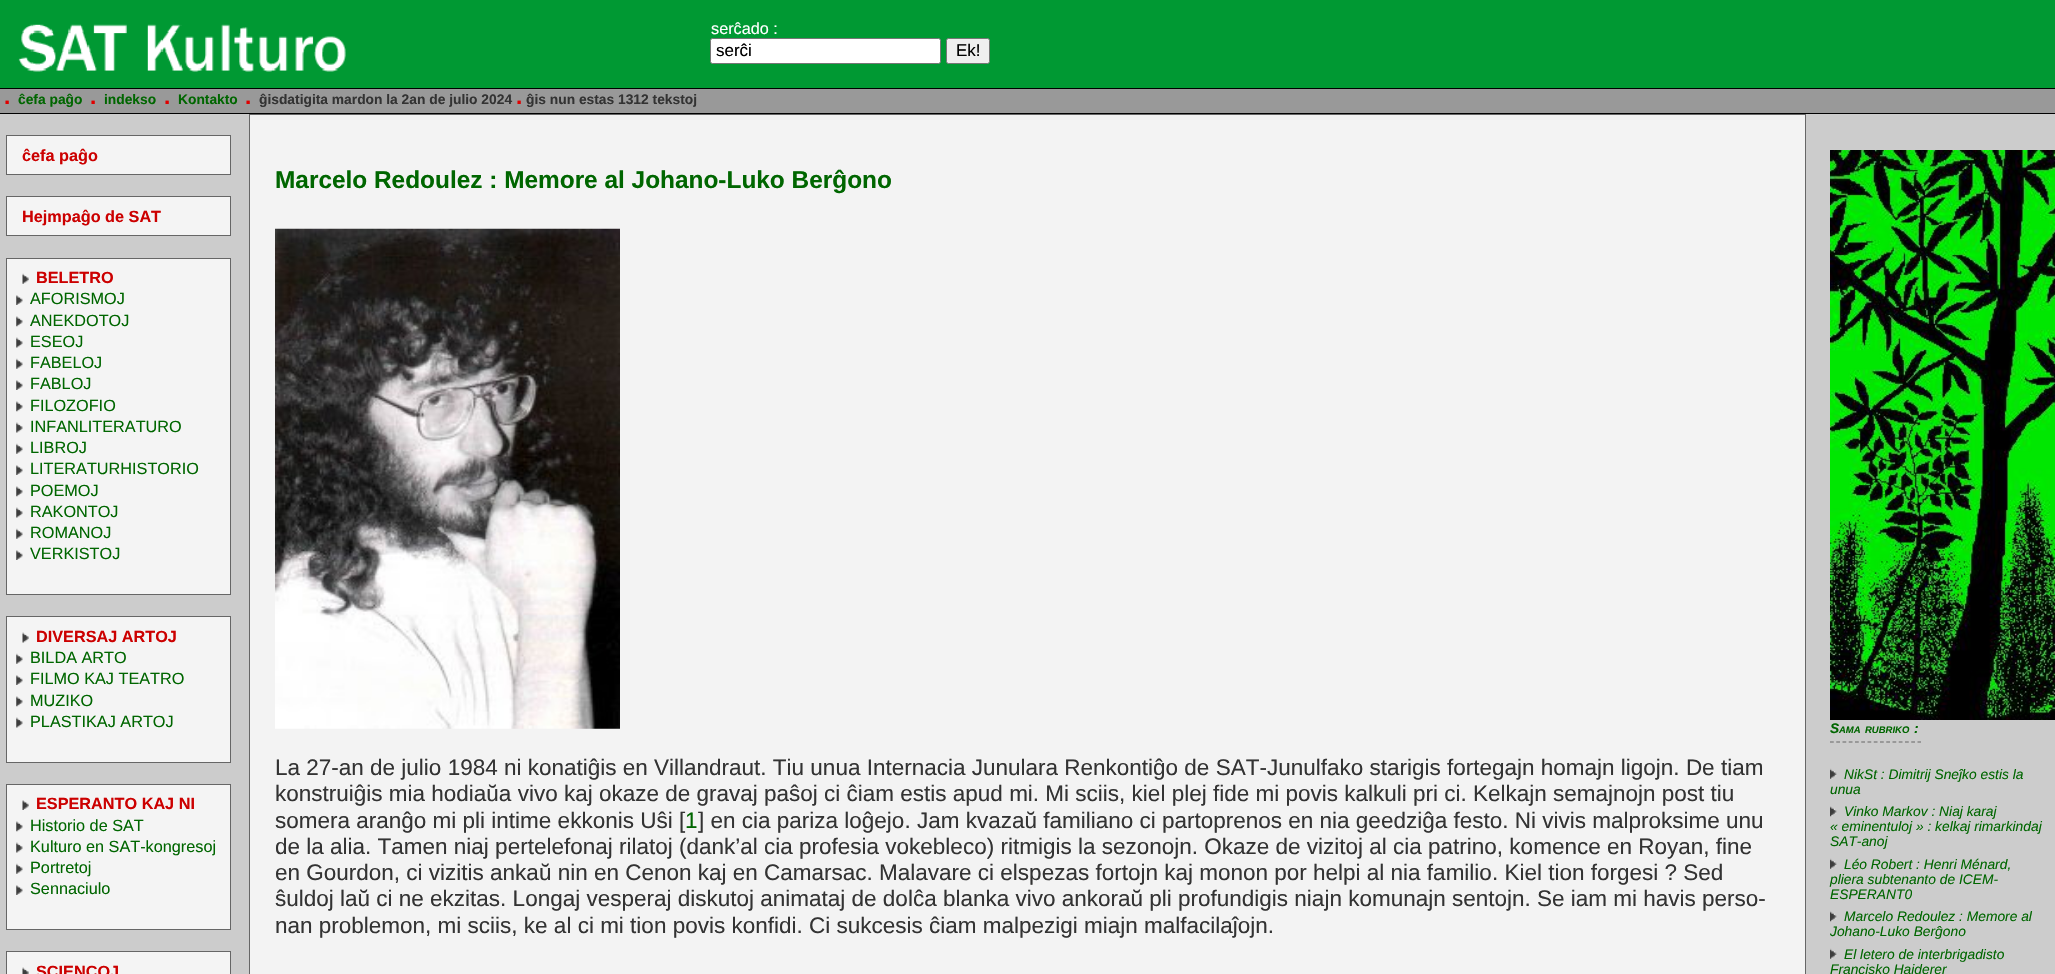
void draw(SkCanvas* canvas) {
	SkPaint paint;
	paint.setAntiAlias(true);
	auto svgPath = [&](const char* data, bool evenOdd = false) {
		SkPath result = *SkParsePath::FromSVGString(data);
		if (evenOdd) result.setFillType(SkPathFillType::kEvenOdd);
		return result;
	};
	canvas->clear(0xffcccccc);
	paint.setColor(0xff009933);
	canvas->drawRect(SkRect::MakeXYWH(0, 0, 2055, 88), paint);
	canvas->drawImageRect(SkImages::DeferredFromEncodedData(SkData::MakeFromFileName("img1.png")), SkRect::MakeXYWH(18, 24, 328, 48), SkSamplingOptions());
	SkFont f1(fontMgr->matchFamilyStyle("Liberation Sans", SkFontStyle::Normal()), 16.25);
	f1.setSubpixel(true);
	paint.setColor(0xffffffff);
	canvas->drawString("serĉado :", 711, 34, f1, paint);
	canvas->drawRoundRect(SkRect::MakeXYWH(710.5, 38.5, 230, 25), 2, 2, paint);
	paint.setStroke(true);
	paint.setStrokeWidth(1);
	paint.setColor(0xff767676);
	canvas->drawRoundRect(SkRect::MakeXYWH(710.5, 38.5, 230, 25), 2, 2, paint);
	SkFont f2(fontMgr->matchFamilyStyle("Liberation Sans", SkFontStyle::Normal()), 17);
	f2.setSubpixel(true);
	paint.setStroke(false);
	paint.setColor(0xff000000);
	canvas->drawString("serĉi", 716, 56, f2, paint);
	paint.setColor(0xffefefef);
	canvas->drawRoundRect(SkRect::MakeXYWH(946.5, 38.5, 43, 25), 2, 2, paint);
	paint.setStroke(true);
	paint.setColor(0xff767676);
	canvas->drawRoundRect(SkRect::MakeXYWH(946.5, 38.5, 43, 25), 2, 2, paint);
	paint.setStroke(false);
	paint.setColor(0xff000000);
	canvas->drawString("Ek!", 956, 56, f2, paint);
	paint.setColor(0xff999999);
	canvas->drawRect(SkRect::MakeXYWH(0, 89, 2055, 24), paint);
	paint.setColor(0xff000000);
	canvas->drawRect(SkRect::MakeXYWH(0, 88, 2055, 1), paint);
	canvas->drawRect(SkRect::MakeXYWH(0, 113, 2055, 1), paint);
	SkFont f3(fontMgr->matchFamilyStyle("Liberation Sans", SkFontStyle::Bold()), 22.5);
	f3.setSubpixel(true);
	paint.setColor(0xffe00000);
	canvas->drawString(".", 4, 104, f3, paint);
	SkFont f4(fontMgr->matchFamilyStyle("Liberation Sans", SkFontStyle::Bold()), 13.8);
	f4.setSubpixel(true);
	paint.setColor(0xff006600);
	canvas->drawString("ĉefa paĝo", 18, 104, f4, paint);
	paint.setColor(0xffe00000);
	canvas->drawString(".", 90, 104, f3, paint);
	paint.setColor(0xff006600);
	canvas->drawString("indekso", 104, 104, f4, paint);
	paint.setColor(0xffe00000);
	canvas->drawString(".", 164, 104, f3, paint);
	paint.setColor(0xff006600);
	canvas->drawString("Kontakto", 178, 104, f4, paint);
	paint.setColor(0xffe00000);
	canvas->drawString(".", 245, 104, f3, paint);
	paint.setColor(0xff333333);
	canvas->drawString("ĝisdatigita mardon la 2an de julio 2024", 259, 104, f4, paint);
	paint.setColor(0xffe00000);
	canvas->drawString(".", 516, 104, f3, paint);
	paint.setColor(0xff333333);
	canvas->drawString("ĝis nun estas 1312 tekstoj", 526, 104, f4, paint);
	paint.setColor(0xfff4f4f4);
	canvas->drawRect(SkRect::MakeXYWH(6.5, 135.5, 224, 39), paint);
	paint.setStroke(true);
	paint.setColor(0xff666666);
	canvas->drawRect(SkRect::MakeXYWH(6.5, 135.5, 224, 39), paint);
	SkFont f5(fontMgr->matchFamilyStyle("Liberation Sans", SkFontStyle::Bold()), 16.25);
	f5.setSubpixel(true);
	paint.setStroke(false);
	paint.setColor(0xffcc0000);
	canvas->drawString("ĉefa paĝo", 22, 161, f5, paint);
	paint.setColor(0xfff4f4f4);
	canvas->drawRect(SkRect::MakeXYWH(6.5, 196.5, 224, 39), paint);
	paint.setStroke(true);
	paint.setColor(0xff666666);
	canvas->drawRect(SkRect::MakeXYWH(6.5, 196.5, 224, 39), paint);
	paint.setStroke(false);
	paint.setColor(0xffcc0000);
	canvas->drawString("Hejmpaĝo de SAT", 22, 222, f5, paint);
	paint.setColor(0xfff4f4f4);
	canvas->drawRect(SkRect::MakeXYWH(6.5, 258.5, 224, 336), paint);
	paint.setStroke(true);
	paint.setColor(0xff666666);
	canvas->drawRect(SkRect::MakeXYWH(6.5, 258.5, 224, 336), paint);
	canvas->drawImageRect(SkImages::DeferredFromEncodedData(SkData::MakeFromFileName("img2.png")), SkRect::MakeXYWH(22, 273, 7, 11), SkSamplingOptions());
	paint.setStroke(false);
	paint.setColor(0xffcc0000);
	canvas->drawString("BELETRO", 36, 283, f5, paint);
	canvas->drawImageRect(SkImages::DeferredFromEncodedData(SkData::MakeFromFileName("img3.png")), SkRect::MakeXYWH(16, 295, 7, 10), SkSamplingOptions());
	paint.setColor(0xff006600);
	canvas->drawString("AFORISMOJ", 30, 304, f1, paint);
	canvas->drawImageRect(SkImages::DeferredFromEncodedData(SkData::MakeFromFileName("img4.png")), SkRect::MakeXYWH(16, 316, 7, 11), SkSamplingOptions());
	canvas->drawString("ANEKDOTOJ", 30, 326, f1, paint);
	canvas->drawImageRect(SkImages::DeferredFromEncodedData(SkData::MakeFromFileName("img5.png")), SkRect::MakeXYWH(16, 337, 7, 11), SkSamplingOptions());
	canvas->drawString("ESEOJ", 30, 347, f1, paint);
	canvas->drawImageRect(SkImages::DeferredFromEncodedData(SkData::MakeFromFileName("img6.png")), SkRect::MakeXYWH(16, 358, 7, 11), SkSamplingOptions());
	canvas->drawString("FABELOJ", 30, 368, f1, paint);
	canvas->drawImageRect(SkImages::DeferredFromEncodedData(SkData::MakeFromFileName("img7.png")), SkRect::MakeXYWH(16, 380, 7, 10), SkSamplingOptions());
	canvas->drawString("FABLOJ", 30, 389, f1, paint);
	canvas->drawImageRect(SkImages::DeferredFromEncodedData(SkData::MakeFromFileName("img4.png")), SkRect::MakeXYWH(16, 401, 7, 11), SkSamplingOptions());
	canvas->drawString("FILOZOFIO", 30, 411, f1, paint);
	canvas->drawImageRect(SkImages::DeferredFromEncodedData(SkData::MakeFromFileName("img5.png")), SkRect::MakeXYWH(16, 422, 7, 11), SkSamplingOptions());
	canvas->drawString("INFANLITERATURO", 30, 432, f1, paint);
	canvas->drawImageRect(SkImages::DeferredFromEncodedData(SkData::MakeFromFileName("img6.png")), SkRect::MakeXYWH(16, 443, 7, 11), SkSamplingOptions());
	canvas->drawString("LIBROJ", 30, 453, f1, paint);
	canvas->drawImageRect(SkImages::DeferredFromEncodedData(SkData::MakeFromFileName("img7.png")), SkRect::MakeXYWH(16, 465, 7, 10), SkSamplingOptions());
	canvas->drawString("LITERATURHISTORIO", 30, 474, f1, paint);
	canvas->drawImageRect(SkImages::DeferredFromEncodedData(SkData::MakeFromFileName("img4.png")), SkRect::MakeXYWH(16, 486, 7, 11), SkSamplingOptions());
	canvas->drawString("POEMOJ", 30, 496, f1, paint);
	canvas->drawImageRect(SkImages::DeferredFromEncodedData(SkData::MakeFromFileName("img5.png")), SkRect::MakeXYWH(16, 507, 7, 11), SkSamplingOptions());
	canvas->drawString("RAKONTOJ", 30, 517, f1, paint);
	canvas->drawImageRect(SkImages::DeferredFromEncodedData(SkData::MakeFromFileName("img6.png")), SkRect::MakeXYWH(16, 528, 7, 11), SkSamplingOptions());
	canvas->drawString("ROMANOJ", 30, 538, f1, paint);
	canvas->drawImageRect(SkImages::DeferredFromEncodedData(SkData::MakeFromFileName("img7.png")), SkRect::MakeXYWH(16, 550, 7, 10), SkSamplingOptions());
	canvas->drawString("VERKISTOJ", 30, 559, f1, paint);
	paint.setColor(0xfff4f4f4);
	canvas->drawRect(SkRect::MakeXYWH(6.5, 616.5, 224, 146), paint);
	paint.setStroke(true);
	paint.setColor(0xff666666);
	canvas->drawRect(SkRect::MakeXYWH(6.5, 616.5, 224, 146), paint);
	canvas->drawImageRect(SkImages::DeferredFromEncodedData(SkData::MakeFromFileName("img8.png")), SkRect::MakeXYWH(22, 632, 7, 11), SkSamplingOptions());
	paint.setStroke(false);
	paint.setColor(0xffcc0000);
	canvas->drawString("DIVERSAJ ARTOJ", 36, 642, f5, paint);
	canvas->drawImageRect(SkImages::DeferredFromEncodedData(SkData::MakeFromFileName("img6.png")), SkRect::MakeXYWH(16, 653, 7, 11), SkSamplingOptions());
	paint.setColor(0xff006600);
	canvas->drawString("BILDA ARTO", 30, 663, f1, paint);
	canvas->drawImageRect(SkImages::DeferredFromEncodedData(SkData::MakeFromFileName("img7.png")), SkRect::MakeXYWH(16, 675, 7, 10), SkSamplingOptions());
	canvas->drawString("FILMO KAJ TEATRO", 30, 684, f1, paint);
	canvas->drawImageRect(SkImages::DeferredFromEncodedData(SkData::MakeFromFileName("img4.png")), SkRect::MakeXYWH(16, 696, 7, 11), SkSamplingOptions());
	canvas->drawString("MUZIKO", 30, 706, f1, paint);
	canvas->drawImageRect(SkImages::DeferredFromEncodedData(SkData::MakeFromFileName("img5.png")), SkRect::MakeXYWH(16, 717, 7, 11), SkSamplingOptions());
	canvas->drawString("PLASTIKAJ ARTOJ", 30, 727, f1, paint);
	paint.setColor(0xfff4f4f4);
	canvas->drawRect(SkRect::MakeXYWH(6.5, 784.5, 224, 145), paint);
	paint.setStroke(true);
	paint.setColor(0xff666666);
	canvas->drawRect(SkRect::MakeXYWH(6.5, 784.5, 224, 145), paint);
	canvas->drawImageRect(SkImages::DeferredFromEncodedData(SkData::MakeFromFileName("img9.png")), SkRect::MakeXYWH(22, 800, 7, 10), SkSamplingOptions());
	paint.setStroke(false);
	paint.setColor(0xffcc0000);
	canvas->drawString("ESPERANTO KAJ NI", 36, 809, f5, paint);
	canvas->drawImageRect(SkImages::DeferredFromEncodedData(SkData::MakeFromFileName("img4.png")), SkRect::MakeXYWH(16, 821, 7, 11), SkSamplingOptions());
	paint.setColor(0xff006600);
	canvas->drawString("Historio de SAT", 30, 831, f1, paint);
	canvas->drawImageRect(SkImages::DeferredFromEncodedData(SkData::MakeFromFileName("img5.png")), SkRect::MakeXYWH(16, 842, 7, 11), SkSamplingOptions());
	canvas->drawString("Kulturo en SAT-kongresoj", 30, 852, f1, paint);
	canvas->drawImageRect(SkImages::DeferredFromEncodedData(SkData::MakeFromFileName("img6.png")), SkRect::MakeXYWH(16, 863, 7, 11), SkSamplingOptions());
	canvas->drawString("Portretoj", 30, 873, f1, paint);
	canvas->drawImageRect(SkImages::DeferredFromEncodedData(SkData::MakeFromFileName("img7.png")), SkRect::MakeXYWH(16, 885, 7, 10), SkSamplingOptions());
	canvas->drawString("Sennaciulo", 30, 894, f1, paint);
	paint.setColor(0xfff4f4f4);
	canvas->drawRect(SkRect::MakeXYWH(6.5, 951.5, 224, 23), paint);
	paint.setStroke(true);
	paint.setColor(0xff666666);
	canvas->drawRect(SkRect::MakeXYWH(6.5, 951.5, 224, 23), paint);
	canvas->drawImageRect(SkImages::DeferredFromEncodedData(SkData::MakeFromFileName("img10.png")), SkRect::MakeXYWH(22, 967, 7, 7), SkSamplingOptions());
	paint.setStroke(false);
	paint.setColor(0xffcc0000);
	canvas->drawString("SCIENCOJ", 36, 977, f5, paint);
	paint.setColor(0xfff3f3f3);
	canvas->drawRect(SkRect::MakeXYWH(249.5, 114.5, 1556, 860), paint);
	paint.setStroke(true);
	paint.setColor(0xff666666);
	canvas->drawRect(SkRect::MakeXYWH(249.5, 114.5, 1556, 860), paint);
	SkFont f6(fontMgr->matchFamilyStyle("Liberation Sans", SkFontStyle::Bold()), 24.4);
	f6.setSubpixel(true);
	paint.setStroke(false);
	paint.setColor(0xff006600);
	canvas->drawString("Marcelo Redoulez : Memore al Johano-Luko Berĝono", 275, 188, f6, paint);
	canvas->drawImageRect(SkImages::DeferredFromEncodedData(SkData::MakeFromFileName("img11.png")), SkRect::MakeXYWH(275, 228, 345, 501), SkSamplingOptions());
	SkFont f7(fontMgr->matchFamilyStyle("Liberation Sans", SkFontStyle::Normal()), 22.5);
	f7.setSubpixel(true);
	paint.setColor(0xff333333);
	canvas->drawString("La 27-an de julio 1984 ni konatiĝis en Villandraut. Tiu unua Internacia Junulara Renkontiĝo de SAT-Junulfako starigis fortegajn homajn ligojn. De tiam", 275, 775, f7, paint);
	canvas->drawString("konstruiĝis mia hodiaŭa vivo kaj okaze de gravaj paŝoj ci ĉiam estis apud mi. Mi sciis, kiel plej fide mi povis kalkuli pri ci. Kelkajn semajnojn post tiu", 275, 801, f7, paint);
	canvas->drawString("somera aranĝo mi pli intime ekkonis Uŝi [", 275, 828, f7, paint);
	paint.setColor(0xff006600);
	canvas->drawString("1", 685, 828, f7, paint);
	paint.setColor(0xff333333);
	canvas->drawString("] en cia pariza loĝejo. Jam kvazaŭ familiano ci partoprenos en nia geedziĝa festo. Ni vivis malproksime unu", 698, 828, f7, paint);
	canvas->drawString("de la alia. Tamen niaj pertelefonaj rilatoj (dank’al cia profesia vokebleco) ritmigis la sezonojn. Okaze de vizitoj al cia patrino, komence en Royan, fine", 275, 854, f7, paint);
	canvas->drawString("en Gourdon, ci vizitis ankaŭ nin en Cenon kaj en Camarsac. Malavare ci elspezas fortojn kaj monon por helpi al nia familio. Kiel tion forgesi ? Sed", 275, 880, f7, paint);
	canvas->drawString("ŝuldoj laŭ ci ne ekzitas. Longaj vesperaj diskutoj animataj de dolĉa blanka vivo ankoraŭ pli profundigis niajn komunajn sentojn. Se iam mi havis perso-", 275, 906, f7, paint);
	canvas->drawString("nan problemon, mi sciis, ke al ci mi tion povis konfidi. Ci sukcesis ĉiam malpezigi miajn malfacilaĵojn.", 275, 933, f7, paint);
	canvas->drawImageRect(SkImages::DeferredFromEncodedData(SkData::MakeFromFileName("img12.png")), SkRect::MakeXYWH(1830, 150, 225, 570), SkSamplingOptions());
	SkFont f8(fontMgr->matchFamilyStyle("Liberation Sans", SkFontStyle::BoldItalic()), 13.8);
	f8.setSubpixel(true);
	paint.setColor(0xff006600);
	canvas->drawString("S", 1830, 733, f8, paint);
	SkFont f9(fontMgr->matchFamilyStyle("Liberation Sans", SkFontStyle::BoldItalic()), 9.5);
	f9.setSubpixel(true);
	canvas->drawString("AMA", 1839, 733, f9, paint);
	canvas->drawString("RUBRIKO", 1865, 733, f9, paint);
	paint.setStroke(true);
	paint.setStrokeWidth(1.2);
	paint.setColor(0xff666666);
	paint.setPathEffect(SkDashPathEffect::Make({{3.75f, 2.5f}}, 0));
	canvas->drawPath(svgPath("M1830 742H1921"), paint);
	paint.setPathEffect(nullptr);
	paint.setStroke(false);
	paint.setColor(0xff006600);
	canvas->drawString(":", 1914, 733, f8, paint);
	canvas->drawImageRect(SkImages::DeferredFromEncodedData(SkData::MakeFromFileName("img13.png")), SkRect::MakeXYWH(1830, 768, 7, 11), SkSamplingOptions());
	SkFont f10(fontMgr->matchFamilyStyle("Liberation Sans", SkFontStyle::Italic()), 13.8);
	f10.setSubpixel(true);
	canvas->drawString("NikSt : Dimitrij Sneĵko estis la", 1844, 779, f10, paint);
	canvas->drawString("unua", 1830, 794, f10, paint);
	canvas->drawImageRect(SkImages::DeferredFromEncodedData(SkData::MakeFromFileName("img14.png")), SkRect::MakeXYWH(1830, 806, 7, 11), SkSamplingOptions());
	canvas->drawString("Vinko Markov : Niaj karaj", 1844, 816, f10, paint);
	canvas->drawString("« eminentuloj » : kelkaj rimarkindaj", 1830, 831, f10, paint);
	canvas->drawString("SAT-anoj", 1830, 846, f10, paint);
	canvas->drawImageRect(SkImages::DeferredFromEncodedData(SkData::MakeFromFileName("img13.png")), SkRect::MakeXYWH(1830, 858, 7, 11), SkSamplingOptions());
	canvas->drawString("Léo Robert : Henri Ménard,", 1844, 869, f10, paint);
	canvas->drawString("pliera subtenanto de ICEM-", 1830, 884, f10, paint);
	canvas->drawString("ESPERANT0", 1830, 899, f10, paint);
	canvas->drawImageRect(SkImages::DeferredFromEncodedData(SkData::MakeFromFileName("img14.png")), SkRect::MakeXYWH(1830, 911, 7, 11), SkSamplingOptions());
	canvas->drawString("Marcelo Redoulez : Memore al", 1844, 921, f10, paint);
	canvas->drawString("Johano-Luko Berĝono", 1830, 936, f10, paint);
	canvas->drawImageRect(SkImages::DeferredFromEncodedData(SkData::MakeFromFileName("img13.png")), SkRect::MakeXYWH(1830, 948, 7, 11), SkSamplingOptions());
	canvas->drawString("El letero de interbrigadisto", 1844, 959, f10, paint);
	canvas->drawString("Francisko Haiderer", 1830, 974, f10, paint);
}
